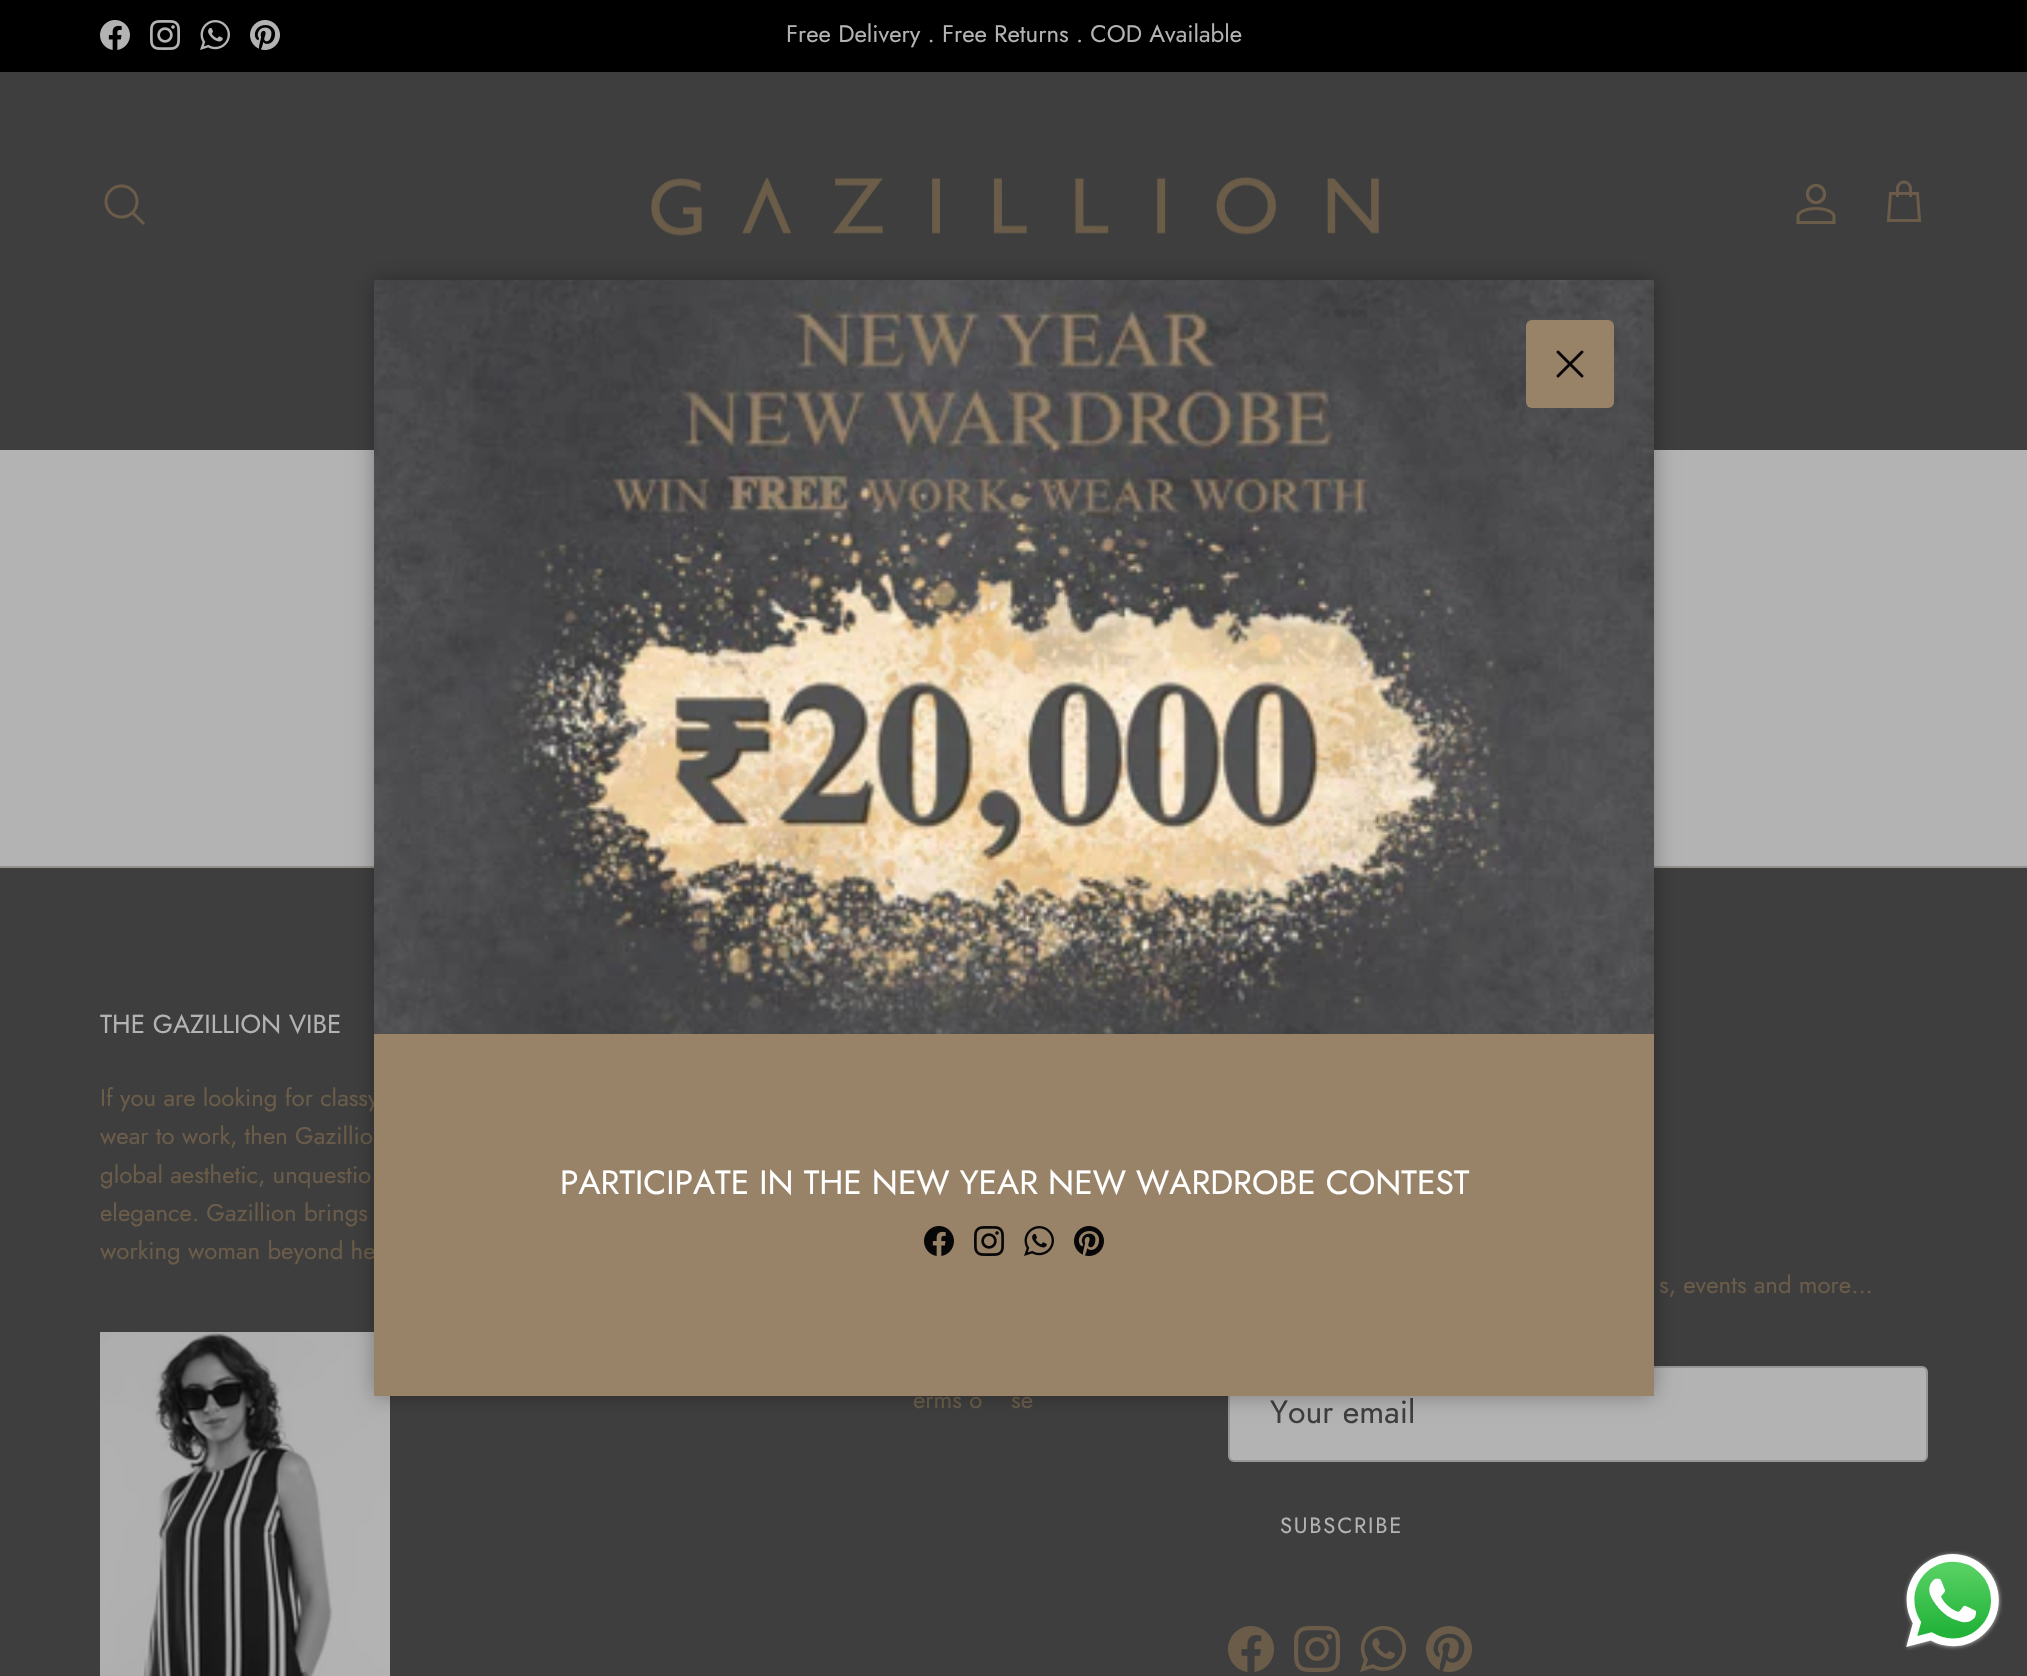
void draw(SkCanvas* canvas) {
	SkPaint paint;
	paint.setAntiAlias(true);
	auto spacedText = [&](const char* s, float x, float y, const SkFont& font, const SkPaint& ink, float letter, float word) {
		std::vector<SkGlyphID> glyphs(font.countText(s, strlen(s), SkTextEncoding::kUTF8));
		std::vector<float> xs(glyphs.size());
		font.textToGlyphs(s, strlen(s), SkTextEncoding::kUTF8, glyphs);
		font.getXPos(glyphs, xs, x);
		float extra = 0;
		for (size_t i = 0; i < glyphs.size(); i++) {
			xs[i] += extra;
			extra += letter + word * (glyphs[i] == font.unicharToGlyph(' '));
		}
		canvas->drawTextBlob(SkTextBlob::MakeFromPosHGlyphs(glyphs, xs, y, font), 0, 0, ink);
	};
	auto svgPath = [&](const char* data, bool evenOdd = false) {
		SkPath result = *SkParsePath::FromSVGString(data);
		if (evenOdd) result.setFillType(SkPathFillType::kEvenOdd);
		return result;
	};
	canvas->clear(0xffb3b3b3);
	paint.setColor(0xff000000);
	canvas->drawRect(SkRect::MakeXYWH(0, 0, 2027, 72), paint);
	canvas->drawImageRect(SkImages::DeferredFromEncodedData(SkData::MakeFromFileName("img1.png")), SkRect::MakeXYWH(100, 20, 30, 30), SkSamplingOptions());
	canvas->drawImageRect(SkImages::DeferredFromEncodedData(SkData::MakeFromFileName("img2.png")), SkRect::MakeXYWH(150, 20, 30, 30), SkSamplingOptions());
	canvas->drawImageRect(SkImages::DeferredFromEncodedData(SkData::MakeFromFileName("img3.png")), SkRect::MakeXYWH(200, 20, 30, 30), SkSamplingOptions());
	canvas->drawImageRect(SkImages::DeferredFromEncodedData(SkData::MakeFromFileName("img4.png")), SkRect::MakeXYWH(250, 20, 30, 30), SkSamplingOptions());
	SkFont f1(fontMgr->matchFamilyStyle("Jost", SkFontStyle::Normal()), 24);
	f1.setSubpixel(true);
	paint.setColor(0xffb3b3b3);
	canvas->drawString("Free Delivery . Free Returns . COD Available", 786, 42, f1, paint);
	paint.setColor(0xff3e3e3e);
	canvas->drawRect(SkRect::MakeXYWH(0, 72, 2027, 378), paint);
	paint.setStroke(true);
	paint.setStrokeWidth(3);
	paint.setColor(0xff6a5c49);
	canvas->drawCircle(121.5, 201.5, 15.5, paint);
	paint.setStrokeCap(SkPaint::kSquare_Cap);
	canvas->drawPath(svgPath("M134 214L143 223"), paint);
	canvas->drawImageRect(SkImages::DeferredFromEncodedData(SkData::MakeFromFileName("img5.png")), SkRect::MakeXYWH(651, 177, 728, 59), SkSamplingOptions());
	canvas->drawImageRect(SkImages::DeferredFromEncodedData(SkData::MakeFromFileName("img6.png")), SkRect::MakeXYWH(1796, 184, 40, 40), SkSamplingOptions());
	paint.setStrokeCap(SkPaint::kButt_Cap);
	canvas->drawPath(svgPath("M1910.5 197V188.5C1910.5 185 1907.5 182 1904 182C1900.5 182 1897.5 185 1897.5 188.5V197M1890.5 193.5H1917.5L1919.5 220.5H1888.5Z"), paint);
	paint.setStroke(false);
	paint.setColor(0xff3e3e3e);
	canvas->drawRect(SkRect::MakeXYWH(0, 868, 2027, 808), paint);
	paint.setColor(0xff948f89);
	canvas->drawRect(SkRect::MakeXYWH(0, 866, 2027, 2), paint);
	SkFont f2(fontMgr->matchFamilyStyle("Jost", SkFontStyle::Normal()), 26);
	f2.setSubpixel(true);
	paint.setColor(0xffb3b3b3);
	canvas->drawString("THE GAZILLION VIBE", 100, 1033, f2, paint);
	paint.setColor(0xff6a5c49);
	canvas->drawString("If you are looking for classy", 100, 1106, f1, paint);
	canvas->drawString("wear to work, then Gazillio", 100, 1144, f1, paint);
	canvas->drawString("global aesthetic, unquestio", 100, 1183, f1, paint);
	canvas->drawString("elegance. Gazillion brings", 100, 1221, f1, paint);
	canvas->drawString("working woman beyond he", 100, 1259, f1, paint);
	canvas->drawImageRect(SkImages::DeferredFromEncodedData(SkData::MakeFromFileName("img7.png")), SkRect::MakeXYWH(100, 1332, 290, 344), SkSamplingOptions());
	canvas->drawString("erms o", 913, 1408, f1, paint);
	canvas->drawString("se", 1011, 1408, f1, paint);
	canvas->drawString("s, events and more...", 1659, 1293, f1, paint);
	paint.setColor(0xffb3b3b3);
	canvas->drawRoundRect(SkRect::MakeXYWH(1229, 1367, 698, 94), 5, 5, paint);
	paint.setStroke(true);
	paint.setStrokeWidth(2);
	paint.setColor(0xff969696);
	canvas->drawRoundRect(SkRect::MakeXYWH(1229, 1367, 698, 94), 5, 5, paint);
	SkFont f3(fontMgr->matchFamilyStyle("Jost", SkFontStyle::Normal()), 32);
	f3.setSubpixel(true);
	paint.setStroke(false);
	paint.setColor(0xff3e3e3e);
	canvas->drawString("Your email", 1270, 1423, f3, paint);
	SkFont f4(fontMgr->matchFamilyStyle("Jost", SkFontStyle::Normal()), 22);
	f4.setSubpixel(true);
	paint.setColor(0xffb3b3b3);
	spacedText("SUBSCRIBE", 1280, 1533, f4, paint, 1.75, 0);
	canvas->drawImageRect(SkImages::DeferredFromEncodedData(SkData::MakeFromFileName("img8.png")), SkRect::MakeXYWH(1228, 1626, 46, 46), SkSamplingOptions());
	canvas->drawImageRect(SkImages::DeferredFromEncodedData(SkData::MakeFromFileName("img9.png")), SkRect::MakeXYWH(1294, 1626, 46, 46), SkSamplingOptions());
	canvas->drawImageRect(SkImages::DeferredFromEncodedData(SkData::MakeFromFileName("img10.png")), SkRect::MakeXYWH(1360, 1626, 46, 46), SkSamplingOptions());
	canvas->drawImageRect(SkImages::DeferredFromEncodedData(SkData::MakeFromFileName("img11.png")), SkRect::MakeXYWH(1426, 1626, 46, 46), SkSamplingOptions());
	paint.setColor(0x4d000000);
	paint.setMaskFilter(SkMaskFilter::MakeBlur(kNormal_SkBlurStyle, 10));
	canvas->drawRect(SkRect::MakeXYWH(374, 280, 1280, 1116), paint);
	paint.setMaskFilter(nullptr);
	paint.setColor(0xff988368);
	canvas->drawRect(SkRect::MakeXYWH(374, 1034, 1280, 362), paint);
	canvas->drawImageRect(SkImages::DeferredFromEncodedData(SkData::MakeFromFileName("img12.png")), SkRect::MakeXYWH(374, 280, 1280, 754), SkSamplingOptions());
	canvas->drawRoundRect(SkRect::MakeXYWH(1526, 320, 88, 88), 6, 6, paint);
	paint.setStroke(true);
	paint.setStrokeWidth(3);
	paint.setStrokeCap(SkPaint::kRound_Cap);
	paint.setStrokeJoin(SkPaint::kRound_Join);
	paint.setColor(0xff070707);
	canvas->drawPath(svgPath("M1582 352L1558 376M1558 352L1582 376"), paint);
	SkFont f5(fontMgr->matchFamilyStyle("Jost", SkFontStyle::Normal()), 33.6);
	f5.setSubpixel(true);
	paint.setStroke(false);
	paint.setColor(0xffffffff);
	canvas->drawString("PARTICIPATE IN THE NEW YEAR NEW WARDROBE CONTEST", 560, 1194, f5, paint);
	canvas->drawImageRect(SkImages::DeferredFromEncodedData(SkData::MakeFromFileName("img13.png")), SkRect::MakeXYWH(924, 1226, 30, 30), SkSamplingOptions());
	canvas->drawImageRect(SkImages::DeferredFromEncodedData(SkData::MakeFromFileName("img14.png")), SkRect::MakeXYWH(974, 1226, 30, 30), SkSamplingOptions());
	canvas->drawImageRect(SkImages::DeferredFromEncodedData(SkData::MakeFromFileName("img15.png")), SkRect::MakeXYWH(1024, 1226, 30, 30), SkSamplingOptions());
	canvas->drawImageRect(SkImages::DeferredFromEncodedData(SkData::MakeFromFileName("img16.png")), SkRect::MakeXYWH(1074, 1226, 30, 30), SkSamplingOptions());
	canvas->drawImageRect(SkImages::DeferredFromEncodedData(SkData::MakeFromFileName("img17.png")), SkRect::MakeXYWH(1903, 1551, 100, 100), SkSamplingOptions());
}
